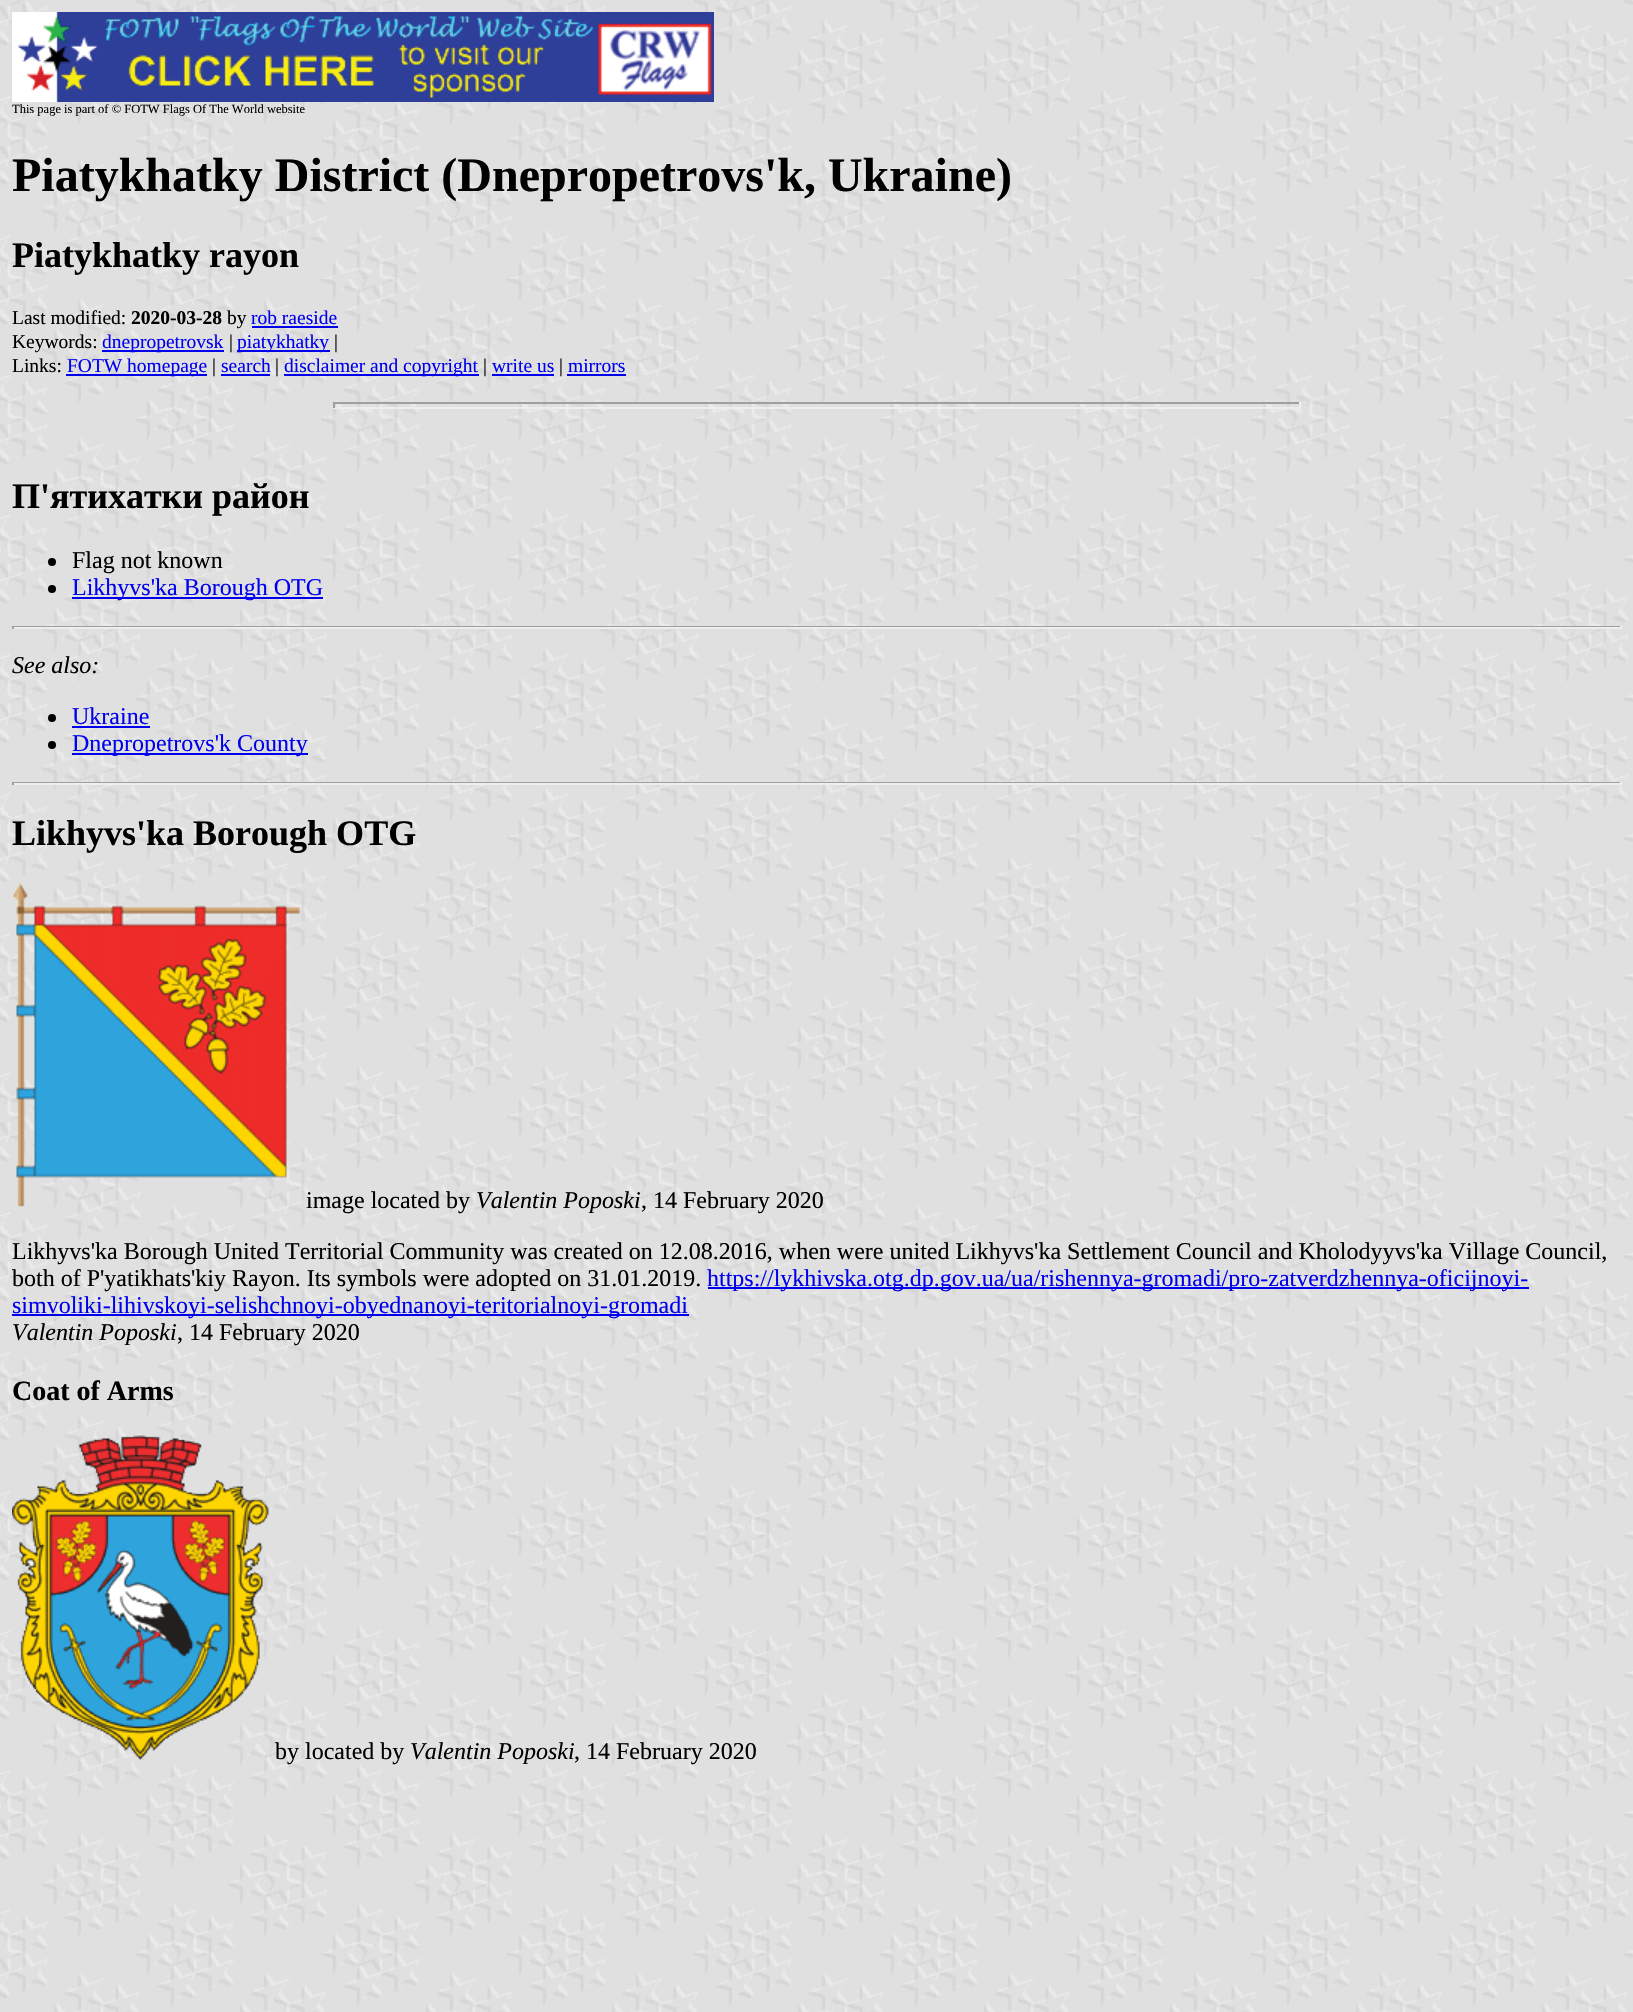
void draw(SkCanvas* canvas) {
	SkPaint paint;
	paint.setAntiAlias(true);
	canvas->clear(0xffffffff);
	canvas->drawImageRect(SkImages::DeferredFromEncodedData(SkData::MakeFromFileName("img1.png")), SkRect::MakeXYWH(0, 0, 1633, 2012), SkSamplingOptions());
	canvas->drawImageRect(SkImages::DeferredFromEncodedData(SkData::MakeFromFileName("img2.png")), SkRect::MakeXYWH(12, 12, 702, 90), SkSamplingOptions());
	SkFont f1(fontMgr->matchFamilyStyle("Liberation Serif", SkFontStyle::Normal()), 12.5);
	f1.setSubpixel(true);
	paint.setColor(0xff000000);
	canvas->drawString("This page is part of © FOTW Flags Of The World website", 12, 113, f1, paint);
	SkFont f2(fontMgr->matchFamilyStyle("Liberation Serif", SkFontStyle::Bold()), 48);
	f2.setSubpixel(true);
	canvas->drawString("Piatykhatky District (Dnepropetrovs'k, Ukraine)", 12, 191, f2, paint);
	SkFont f3(fontMgr->matchFamilyStyle("Liberation Serif", SkFontStyle::Bold()), 36);
	f3.setSubpixel(true);
	canvas->drawString("Piatykhatky rayon", 12, 267, f3, paint);
	SkFont f4(fontMgr->matchFamilyStyle("Liberation Serif", SkFontStyle::Normal()), 19.5);
	f4.setSubpixel(true);
	canvas->drawString("Last modified:", 12, 324, f4, paint);
	SkFont f5(fontMgr->matchFamilyStyle("Liberation Serif", SkFontStyle::Bold()), 19.5);
	f5.setSubpixel(true);
	canvas->drawString("2020-03-28", 131, 324, f5, paint);
	canvas->drawString("by", 227, 324, f4, paint);
	paint.setColor(0xff0000ee);
	canvas->drawString("rob raeside", 251, 324, f4, paint);
	canvas->drawRect(SkRect::MakeXYWH(252, 326, 86, 2), paint);
	paint.setColor(0xff000000);
	canvas->drawString("Keywords:", 12, 348, f4, paint);
	paint.setColor(0xff0000ee);
	canvas->drawRect(SkRect::MakeXYWH(102, 350, 122, 2), paint);
	canvas->drawString("dnepropetrovsk", 102, 348, f4, paint);
	paint.setColor(0xff000000);
	canvas->drawString("|", 229, 348, f4, paint);
	paint.setColor(0xff0000ee);
	canvas->drawRect(SkRect::MakeXYWH(237, 350, 93, 2), paint);
	canvas->drawString("piatykhatky", 237, 348, f4, paint);
	paint.setColor(0xff000000);
	canvas->drawString("|", 334, 348, f4, paint);
	canvas->drawString("Links:", 12, 372, f4, paint);
	paint.setColor(0xff0000ee);
	canvas->drawRect(SkRect::MakeXYWH(66, 374, 141, 2), paint);
	canvas->drawString("FOTW homepage", 67, 372, f4, paint);
	paint.setColor(0xff000000);
	canvas->drawString("|", 212, 372, f4, paint);
	paint.setColor(0xff0000ee);
	canvas->drawString("search", 221, 372, f4, paint);
	canvas->drawRect(SkRect::MakeXYWH(221, 374, 49, 2), paint);
	paint.setColor(0xff000000);
	canvas->drawString("|", 275, 372, f4, paint);
	paint.setColor(0xff0000ee);
	canvas->drawRect(SkRect::MakeXYWH(284, 374, 195, 2), paint);
	canvas->drawString("disclaimer and copyright", 284, 372, f4, paint);
	paint.setColor(0xff000000);
	canvas->drawString("|", 483, 372, f4, paint);
	paint.setColor(0xff0000ee);
	canvas->drawString("write us", 492, 372, f4, paint);
	canvas->drawRect(SkRect::MakeXYWH(492, 374, 62, 2), paint);
	paint.setColor(0xff000000);
	canvas->drawString("|", 559, 372, f4, paint);
	paint.setColor(0xff0000ee);
	canvas->drawString("mirrors", 568, 372, f4, paint);
	canvas->drawRect(SkRect::MakeXYWH(567, 374, 59, 2), paint);
	paint.setColor(0xff9f9f9f);
	canvas->drawRect(SkRect::MakeXYWH(333, 402, 968, 2), paint);
	paint.setColor(0xffeeeeee);
	canvas->drawRect(SkRect::MakeXYWH(1299, 402, 2, 6), paint);
	canvas->drawRect(SkRect::MakeXYWH(333, 407, 968, 2), paint);
	paint.setColor(0xff9f9f9f);
	canvas->drawRect(SkRect::MakeXYWH(333, 402, 2, 6), paint);
	paint.setColor(0xff000000);
	canvas->drawString("П'ятихатки район", 12, 508, f3, paint);
	canvas->drawCircle(52, 562, 4, paint);
	SkFont f6(fontMgr->matchFamilyStyle("Liberation Serif", SkFontStyle::Normal()), 24);
	f6.setSubpixel(true);
	canvas->drawString("Flag not known", 72, 568, f6, paint);
	canvas->drawCircle(52, 589, 4, paint);
	paint.setColor(0xff0000ee);
	canvas->drawRect(SkRect::MakeXYWH(72, 597, 251, 2), paint);
	canvas->drawString("Likhyvs'ka Borough OTG", 72, 595, f6, paint);
	paint.setColor(0xff9f9f9f);
	canvas->drawRect(SkRect::MakeXYWH(12, 626, 1610, 1), paint);
	paint.setColor(0xffeeeeee);
	canvas->drawRect(SkRect::MakeXYWH(1620, 626, 2, 3), paint);
	canvas->drawRect(SkRect::MakeXYWH(12, 627, 1610, 2), paint);
	paint.setColor(0xff9f9f9f);
	canvas->drawRect(SkRect::MakeXYWH(12, 626, 2, 3), paint);
	SkFont f7(fontMgr->matchFamilyStyle("Liberation Serif", SkFontStyle::Italic()), 24);
	f7.setSubpixel(true);
	paint.setColor(0xff000000);
	canvas->drawString("See also:", 12, 673, f7, paint);
	canvas->drawCircle(52, 718, 4, paint);
	paint.setColor(0xff0000ee);
	canvas->drawString("Ukraine", 72, 724, f6, paint);
	canvas->drawRect(SkRect::MakeXYWH(72, 726, 78, 2), paint);
	paint.setColor(0xff000000);
	canvas->drawCircle(52, 745, 4, paint);
	paint.setColor(0xff0000ee);
	canvas->drawRect(SkRect::MakeXYWH(72, 753, 236, 2), paint);
	canvas->drawString("Dnepropetrovs'k County", 72, 751, f6, paint);
	paint.setColor(0xff9f9f9f);
	canvas->drawRect(SkRect::MakeXYWH(12, 782, 1610, 1), paint);
	paint.setColor(0xffeeeeee);
	canvas->drawRect(SkRect::MakeXYWH(1620, 782, 2, 3), paint);
	canvas->drawRect(SkRect::MakeXYWH(12, 783, 1610, 2), paint);
	paint.setColor(0xff9f9f9f);
	canvas->drawRect(SkRect::MakeXYWH(12, 782, 2, 3), paint);
	paint.setColor(0xff000000);
	canvas->drawString("Likhyvs'ka Borough OTG", 12, 845, f3, paint);
	canvas->drawImageRect(SkImages::DeferredFromEncodedData(SkData::MakeFromFileName("img3.png")), SkRect::MakeXYWH(13, 883, 287, 324), SkSamplingOptions());
	canvas->drawString("image located by", 306, 1208, f6, paint);
	canvas->drawString("Valentin Poposki", 476, 1208, f7, paint);
	canvas->drawString(", 14 February 2020", 641, 1208, f6, paint);
	canvas->drawString("Likhyvs'ka Borough United Territorial Community was created on 12.08.2016, when were united Likhyvs'ka Settlement Council and Kholodyyvs'ka Village Council,", 12, 1259, f6, paint);
	canvas->drawString("both of P'yatikhats'kiy Rayon. Its symbols were adopted on 31.01.2019.", 12, 1286, f6, paint);
	paint.setColor(0xff0000ee);
	canvas->drawRect(SkRect::MakeXYWH(708, 1287, 821, 2), paint);
	canvas->drawString("https://lykhivska.otg.dp.gov.ua/ua/rishennya-gromadi/pro-zatverdzhennya-oficijnoyi-", 707, 1286, f6, paint);
	canvas->drawRect(SkRect::MakeXYWH(12, 1314, 677, 2), paint);
	canvas->drawString("simvoliki-lihivskoyi-selishchnoyi-obyednanoyi-teritorialnoyi-gromadi", 12, 1313, f6, paint);
	paint.setColor(0xff000000);
	canvas->drawString("Valentin Poposki", 12, 1340, f7, paint);
	canvas->drawString(", 14 February 2020", 177, 1340, f6, paint);
	SkFont f8(fontMgr->matchFamilyStyle("Liberation Serif", SkFontStyle::Bold()), 28);
	f8.setSubpixel(true);
	canvas->drawString("Coat of Arms", 12, 1400, f8, paint);
	canvas->drawImageRect(SkImages::DeferredFromEncodedData(SkData::MakeFromFileName("img4.png")), SkRect::MakeXYWH(12, 1435, 257, 325), SkSamplingOptions());
	canvas->drawString("by located by", 275, 1759, f6, paint);
	canvas->drawString("Valentin Poposki", 410, 1759, f7, paint);
	canvas->drawString(", 14 February 2020", 574, 1759, f6, paint);
}
